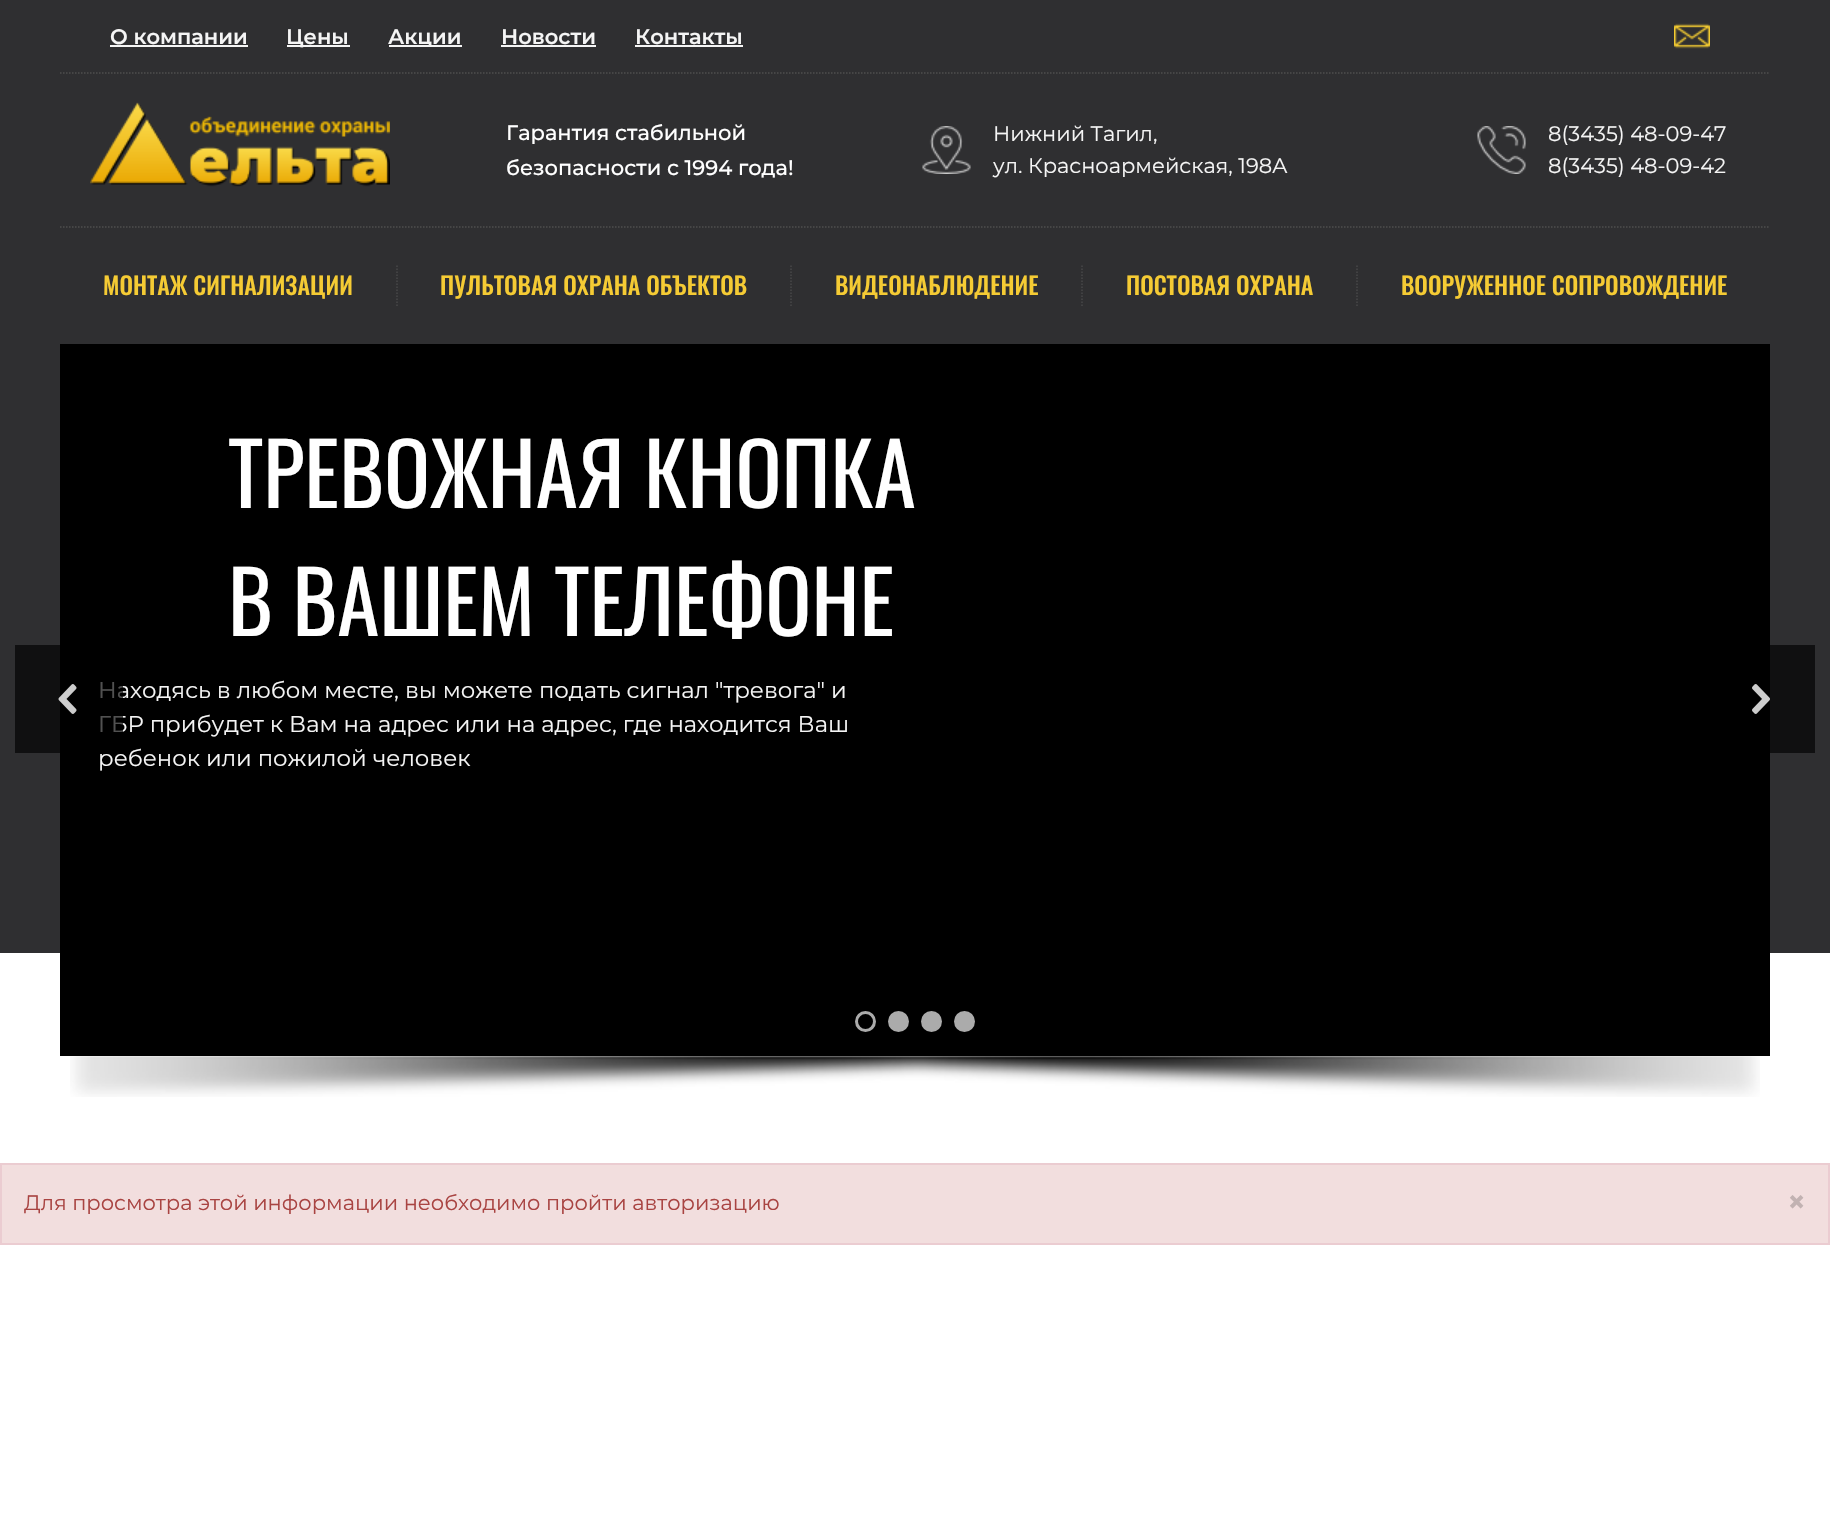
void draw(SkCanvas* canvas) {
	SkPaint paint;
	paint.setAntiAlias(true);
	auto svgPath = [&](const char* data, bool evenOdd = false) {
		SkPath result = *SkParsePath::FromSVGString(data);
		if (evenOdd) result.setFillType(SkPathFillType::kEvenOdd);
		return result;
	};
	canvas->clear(0xffffffff);
	paint.setColor(0xff2f2f31);
	canvas->drawRect(SkRect::MakeXYWH(0, 0, 1830, 953), paint);
	SkFont f1(fontMgr->matchFamilyStyle("Montserrat", SkFontStyle(600, SkFontStyle::kNormal_Width, SkFontStyle::kUpright_Slant)), 21);
	f1.setSubpixel(true);
	paint.setColor(0xfff5f5f5);
	canvas->drawString("О компании", 110, 44, f1, paint);
	canvas->drawRect(SkRect::MakeXYWH(110, 45, 138, 2), paint);
	canvas->drawRect(SkRect::MakeXYWH(287, 45, 63, 2), paint);
	canvas->drawString("Цены", 286, 44, f1, paint);
	canvas->drawRect(SkRect::MakeXYWH(389, 45, 73, 2), paint);
	canvas->drawString("Акции", 388, 44, f1, paint);
	canvas->drawString("Новости", 501, 44, f1, paint);
	canvas->drawRect(SkRect::MakeXYWH(501, 45, 95, 2), paint);
	canvas->drawString("Контакты", 635, 44, f1, paint);
	canvas->drawRect(SkRect::MakeXYWH(635, 45, 108, 2), paint);
	canvas->drawImageRect(SkImages::DeferredFromEncodedData(SkData::MakeFromFileName("img1.png")), SkRect::MakeXYWH(1674, 23, 36, 26), SkSamplingOptions());
	paint.setStroke(true);
	paint.setStrokeWidth(1.5);
	paint.setColor(0xff4d4d4d);
	paint.setPathEffect(SkDashPathEffect::Make({{1.5f, 1.5f}}, 0));
	canvas->drawPath(svgPath("M60 73H1770"), paint);
	paint.setPathEffect(nullptr);
	paint.setPathEffect(SkDashPathEffect::Make({{1.5f, 1.5f}}, 0));
	canvas->drawPath(svgPath("M60 227H1770"), paint);
	paint.setPathEffect(nullptr);
	canvas->drawImageRect(SkImages::DeferredFromEncodedData(SkData::MakeFromFileName("img2.png")), SkRect::MakeXYWH(90, 102, 300, 85), SkSamplingOptions());
	SkFont f2(fontMgr->matchFamilyStyle("Montserrat", SkFontStyle(500, SkFontStyle::kNormal_Width, SkFontStyle::kUpright_Slant)), 21);
	f2.setSubpixel(true);
	paint.setStroke(false);
	paint.setColor(0xffffffff);
	canvas->drawString("Гарантия стабильной", 506, 140, f2, paint);
	canvas->drawString("безопасности с 1994 года!", 506, 175, f2, paint);
	canvas->drawImageRect(SkImages::DeferredFromEncodedData(SkData::MakeFromFileName("img3.png")), SkRect::MakeXYWH(922, 126, 49, 48), SkSamplingOptions());
	SkFont f3(fontMgr->matchFamilyStyle("Montserrat", SkFontStyle::Normal()), 21);
	f3.setSubpixel(true);
	paint.setColor(0xfff5f5f5);
	canvas->drawString("Нижний Тагил,", 993, 141, f3, paint);
	canvas->drawString("ул. Красноармейская, 198А", 993, 173, f3, paint);
	canvas->drawImageRect(SkImages::DeferredFromEncodedData(SkData::MakeFromFileName("img4.png")), SkRect::MakeXYWH(1477, 126, 49, 48), SkSamplingOptions());
	canvas->drawString("8(3435) 48-09-47", 1548, 141, f3, paint);
	canvas->drawString("8(3435) 48-09-42", 1548, 173, f3, paint);
	paint.setStroke(true);
	paint.setColor(0xff474747);
	paint.setPathEffect(SkDashPathEffect::Make({{1.5f, 1.5f}}, 0));
	canvas->drawPath(svgPath("M397 265.5V306"), paint);
	paint.setPathEffect(nullptr);
	SkFont f4(fontMgr->matchFamilyStyle("Oswald", SkFontStyle(500, SkFontStyle::kNormal_Width, SkFontStyle::kUpright_Slant)), 24);
	f4.setSubpixel(true);
	paint.setStroke(false);
	paint.setColor(0xfff5cb34);
	canvas->drawString("МОНТАЖ СИГНАЛИЗАЦИИ", 103, 295, f4, paint);
	paint.setStroke(true);
	paint.setColor(0xff474747);
	paint.setPathEffect(SkDashPathEffect::Make({{1.5f, 1.5f}}, 0));
	canvas->drawPath(svgPath("M791 265.5V306"), paint);
	paint.setPathEffect(nullptr);
	paint.setStroke(false);
	paint.setColor(0xfff5cb34);
	canvas->drawString("ПУЛЬТОВАЯ ОХРАНА ОБЪЕКТОВ", 440, 295, f4, paint);
	paint.setStroke(true);
	paint.setColor(0xff474747);
	paint.setPathEffect(SkDashPathEffect::Make({{1.5f, 1.5f}}, 0));
	canvas->drawPath(svgPath("M1082 265.5V306"), paint);
	paint.setPathEffect(nullptr);
	paint.setStroke(false);
	paint.setColor(0xfff5cb34);
	canvas->drawString("ВИДЕОНАБЛЮДЕНИЕ", 835, 295, f4, paint);
	paint.setStroke(true);
	paint.setColor(0xff474747);
	paint.setPathEffect(SkDashPathEffect::Make({{1.5f, 1.5f}}, 0));
	canvas->drawPath(svgPath("M1357 265.5V306"), paint);
	paint.setPathEffect(nullptr);
	paint.setStroke(false);
	paint.setColor(0xfff5cb34);
	canvas->drawString("ПОСТОВАЯ ОХРАНА", 1126, 295, f4, paint);
	canvas->drawString("ВООРУЖЕННОЕ СОПРОВОЖДЕНИЕ", 1401, 295, f4, paint);
	paint.setColor(0xff000000);
	canvas->drawRect(SkRect::MakeXYWH(60, 344, 1710, 712), paint);
	SkFont f5(fontMgr->matchFamilyStyle("Montserrat", SkFontStyle::Normal()), 22.8);
	f5.setSubpixel(true);
	paint.setColor(0xfff5f5f5);
	canvas->drawString("Находясь в любом месте, вы можете подать сигнал \"тревога\" и", 98, 698, f5, paint);
	canvas->drawString("ГБР прибудет к Вам на адрес или на адрес, где находится Ваш", 98, 732, f5, paint);
	canvas->drawString("ребенок или пожилой человек", 98, 766, f5, paint);
	paint.setColor(0xab000000);
	canvas->drawRect(SkRect::MakeXYWH(15, 645, 108, 108), paint);
	canvas->drawImageRect(SkImages::DeferredFromEncodedData(SkData::MakeFromFileName("img5.png")), SkRect::MakeXYWH(58, 684, 19, 30), SkSamplingOptions());
	SkFont f6(fontMgr->matchFamilyStyle("Oswald", SkFontStyle::Normal()), 85.5);
	f6.setSubpixel(true);
	paint.setColor(0xffffffff);
	canvas->drawString("ТРЕВОЖНАЯ КНОПКА", 228, 508, f6, paint);
	canvas->drawString("В ВАШЕМ ТЕЛЕФОНЕ", 228, 636, f6, paint);
	paint.setColor(0xab000000);
	canvas->drawRect(SkRect::MakeXYWH(1770, 645, 45, 108), paint);
	canvas->drawImageRect(SkImages::DeferredFromEncodedData(SkData::MakeFromFileName("img6.png")), SkRect::MakeXYWH(1752, 684, 18, 30), SkSamplingOptions());
	paint.setStroke(true);
	paint.setStrokeWidth(3);
	paint.setColor(0xffababab);
	canvas->drawCircle(865.5, 1021.5, 9, paint);
	paint.setStroke(false);
	canvas->drawCircle(898.5, 1021.5, 10.5, paint);
	canvas->drawCircle(931.5, 1021.5, 10.5, paint);
	canvas->drawCircle(964.5, 1021.5, 10.5, paint);
	canvas->drawImageRect(SkImages::DeferredFromEncodedData(SkData::MakeFromFileName("img7.png")), SkRect::MakeXYWH(70, 1056, 1690, 41), SkSamplingOptions());
	paint.setColor(0xfff2dede);
	canvas->drawRect(SkRect::MakeXYWH(1, 1164, 1828, 80), paint);
	paint.setStroke(true);
	paint.setStrokeWidth(2);
	paint.setColor(0xffebccd1);
	canvas->drawRect(SkRect::MakeXYWH(1, 1164, 1828, 80), paint);
	paint.setStroke(false);
	paint.setColor(0xffa94442);
	canvas->drawString("Для просмотра этой информации необходимо пройти авторизацию", 24, 1210, f3, paint);
	SkFont f7(fontMgr->matchFamilyStyle("Montserrat", SkFontStyle::Bold()), 32);
	f7.setSubpixel(true);
	paint.setColor(0xffc2b2b2);
	canvas->drawString("×", 1787, 1213, f7, paint);
}
